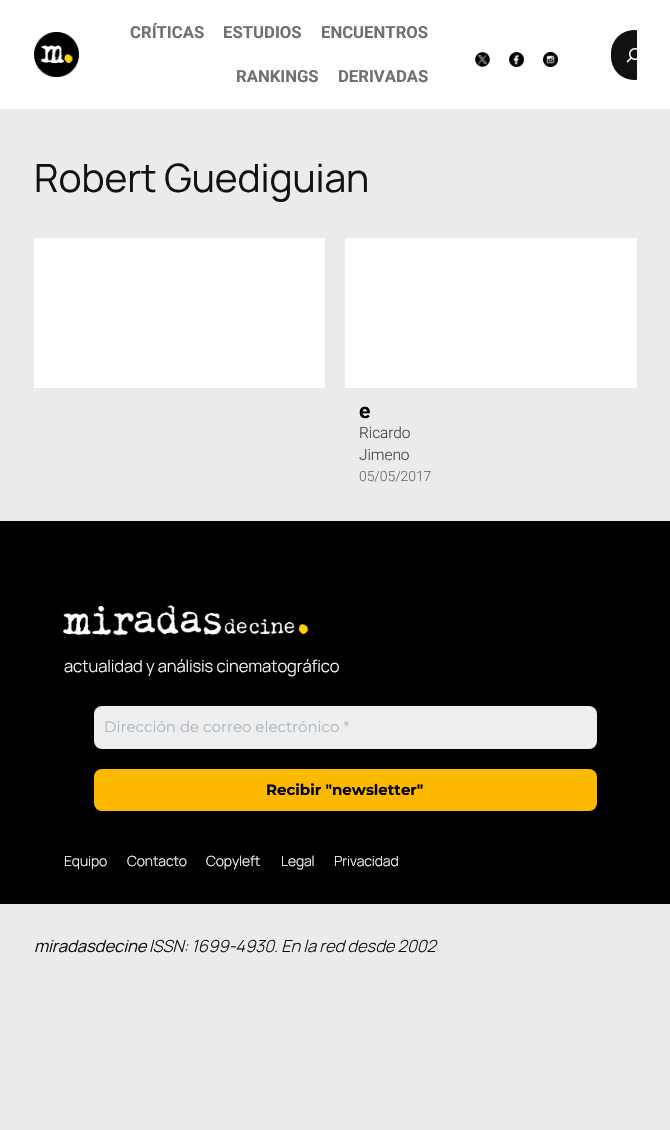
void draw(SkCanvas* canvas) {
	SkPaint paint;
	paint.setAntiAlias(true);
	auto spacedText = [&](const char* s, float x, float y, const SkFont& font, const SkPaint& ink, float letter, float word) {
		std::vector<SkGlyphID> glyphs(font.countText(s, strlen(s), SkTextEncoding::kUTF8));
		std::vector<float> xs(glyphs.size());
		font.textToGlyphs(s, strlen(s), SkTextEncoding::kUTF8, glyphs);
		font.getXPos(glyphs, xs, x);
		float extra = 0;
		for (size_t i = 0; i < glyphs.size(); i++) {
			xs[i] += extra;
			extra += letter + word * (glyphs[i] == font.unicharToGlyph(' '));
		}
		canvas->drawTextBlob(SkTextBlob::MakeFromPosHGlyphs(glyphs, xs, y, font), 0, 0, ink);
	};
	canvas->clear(0xffebebeb);
	paint.setColor(0xffffffff);
	canvas->drawRect(SkRect::MakeXYWH(0, 0, 670, 109), paint);
	canvas->drawImageRect(SkImages::DeferredFromEncodedData(SkData::MakeFromFileName("img1.png")), SkRect::MakeXYWH(34, 32, 45, 45), SkSamplingOptions());
	SkFont f1(fontMgr->matchFamilyStyle("Roboto", SkFontStyle::Bold()), 16.7);
	f1.setSubpixel(true);
	paint.setColor(0xff707070);
	canvas->drawString("CRÍTICAS", 130, 38, f1, paint);
	canvas->drawString("ESTUDIOS", 223, 38, f1, paint);
	canvas->drawString("ENCUENTROS", 321, 38, f1, paint);
	canvas->drawString("RANKINGS", 236, 82, f1, paint);
	canvas->drawString("DERIVADAS", 338, 82, f1, paint);
	canvas->drawImageRect(SkImages::DeferredFromEncodedData(SkData::MakeFromFileName("img2.png")), SkRect::MakeXYWH(475, 52, 15, 15), SkSamplingOptions());
	canvas->drawImageRect(SkImages::DeferredFromEncodedData(SkData::MakeFromFileName("img3.png")), SkRect::MakeXYWH(509, 52, 15, 15), SkSamplingOptions());
	canvas->drawImageRect(SkImages::DeferredFromEncodedData(SkData::MakeFromFileName("img4.png")), SkRect::MakeXYWH(543, 52, 15, 15), SkSamplingOptions());
	canvas->save();
	canvas->clipRect(SkRect::MakeXYWH(591, 30, 46, 50));
	paint.setColor(0xff111111);
	canvas->drawRoundRect(SkRect::MakeXYWH(611, 30, 46, 50), 23, 23, paint);
	canvas->restore();
	canvas->drawImageRect(SkImages::DeferredFromEncodedData(SkData::MakeFromFileName("img5.png")), SkRect::MakeXYWH(626, 48, 11, 15), SkSamplingOptions());
	SkFont f2(fontMgr->matchFamilyStyle("Manrope", SkFontStyle::Normal()), 39);
	f2.setSubpixel(true);
	spacedText("Robert Guediguian", 34, 192, f2, paint, -0.1, 0);
	paint.setColor(0xffffffff);
	canvas->drawRect(SkRect::MakeXYWH(345, 238, 292, 150), paint);
	canvas->drawRect(SkRect::MakeXYWH(34, 238, 291, 150), paint);
	SkFont f3(fontMgr->matchFamilyStyle("Roboto", SkFontStyle::Bold()), 21);
	f3.setSubpixel(true);
	paint.setColor(0xff000000);
	spacedText("e", 359, 418, f3, paint, -1, 0);
	SkFont f4(fontMgr->matchFamilyStyle("Roboto", SkFontStyle(300, SkFontStyle::kNormal_Width, SkFontStyle::kUpright_Slant)), 15.5);
	f4.setSubpixel(true);
	paint.setColor(0xff464444);
	spacedText("Ricardo", 359, 438, f4, paint, -0.1, 0);
	spacedText("Jimeno", 359, 460, f4, paint, -0.1, 0);
	SkFont f5(fontMgr->matchFamilyStyle("Roboto", SkFontStyle(300, SkFontStyle::kNormal_Width, SkFontStyle::kUpright_Slant)), 14);
	f5.setSubpixel(true);
	paint.setColor(0xff686868);
	spacedText("05/05/2017", 359, 481, f5, paint, -0.1, 0);
	paint.setColor(0xff000000);
	canvas->drawRect(SkRect::MakeXYWH(0, 521, 670, 383), paint);
	canvas->drawImageRect(SkImages::DeferredFromEncodedData(SkData::MakeFromFileName("img6.png")), SkRect::MakeXYWH(63, 605, 246, 31), SkSamplingOptions());
	SkFont f6(fontMgr->matchFamilyStyle("Manrope", SkFontStyle(300, SkFontStyle::kNormal_Width, SkFontStyle::kUpright_Slant)), 16.7);
	f6.setSubpixel(true);
	paint.setColor(0xffffffff);
	spacedText("actualidad y análisis cinematográfico", 64, 672, f6, paint, -0.1, 0);
	paint.setColor(0xffeeeeee);
	canvas->drawRoundRect(SkRect::MakeXYWH(94, 706, 503, 43), 8, 8, paint);
	SkFont f7(fontMgr->matchFamilyStyle("Montserrat", SkFontStyle::Normal()), 15);
	f7.setSubpixel(true);
	paint.setColor(0xffabb8c3);
	canvas->drawString("Dirección de correo electrónico *", 104, 732, f7, paint);
	paint.setColor(0xfffcb900);
	canvas->drawRoundRect(SkRect::MakeXYWH(94, 769, 503, 42), 8, 8, paint);
	SkFont f8(fontMgr->matchFamilyStyle("Montserrat", SkFontStyle::Bold()), 15);
	f8.setSubpixel(true);
	paint.setColor(0xff000000);
	canvas->drawString("Recibir \"newsletter\"", 266, 795, f8, paint);
	SkFont f9(fontMgr->matchFamilyStyle("Manrope", SkFontStyle(300, SkFontStyle::kNormal_Width, SkFontStyle::kUpright_Slant)), 14);
	f9.setSubpixel(true);
	paint.setColor(0xffffffff);
	spacedText("Equipo", 64, 866, f9, paint, -0.1, 0);
	spacedText("Contacto", 127, 866, f9, paint, -0.1, 0);
	spacedText("Copyleft", 206, 866, f9, paint, -0.1, 0);
	spacedText("Legal", 281, 866, f9, paint, -0.1, 0);
	spacedText("Privacidad", 334, 866, f9, paint, -0.1, 0);
	SkFont f10(fontMgr->matchFamilyStyle("Manrope", SkFontStyle::Italic()), 16.7);
	f10.setSubpixel(true);
	paint.setColor(0xff111111);
	spacedText("miradasdecine", 34, 952, f10, paint, -0.1, 0);
	SkFont f11(fontMgr->matchFamilyStyle("Manrope", SkFontStyle(300, SkFontStyle::kNormal_Width, SkFontStyle::kItalic_Slant)), 16.7);
	f11.setSubpixel(true);
	spacedText("ISSN: 1699-4930. En la red desde 2002", 149, 952, f11, paint, -0.1, 0);
}
